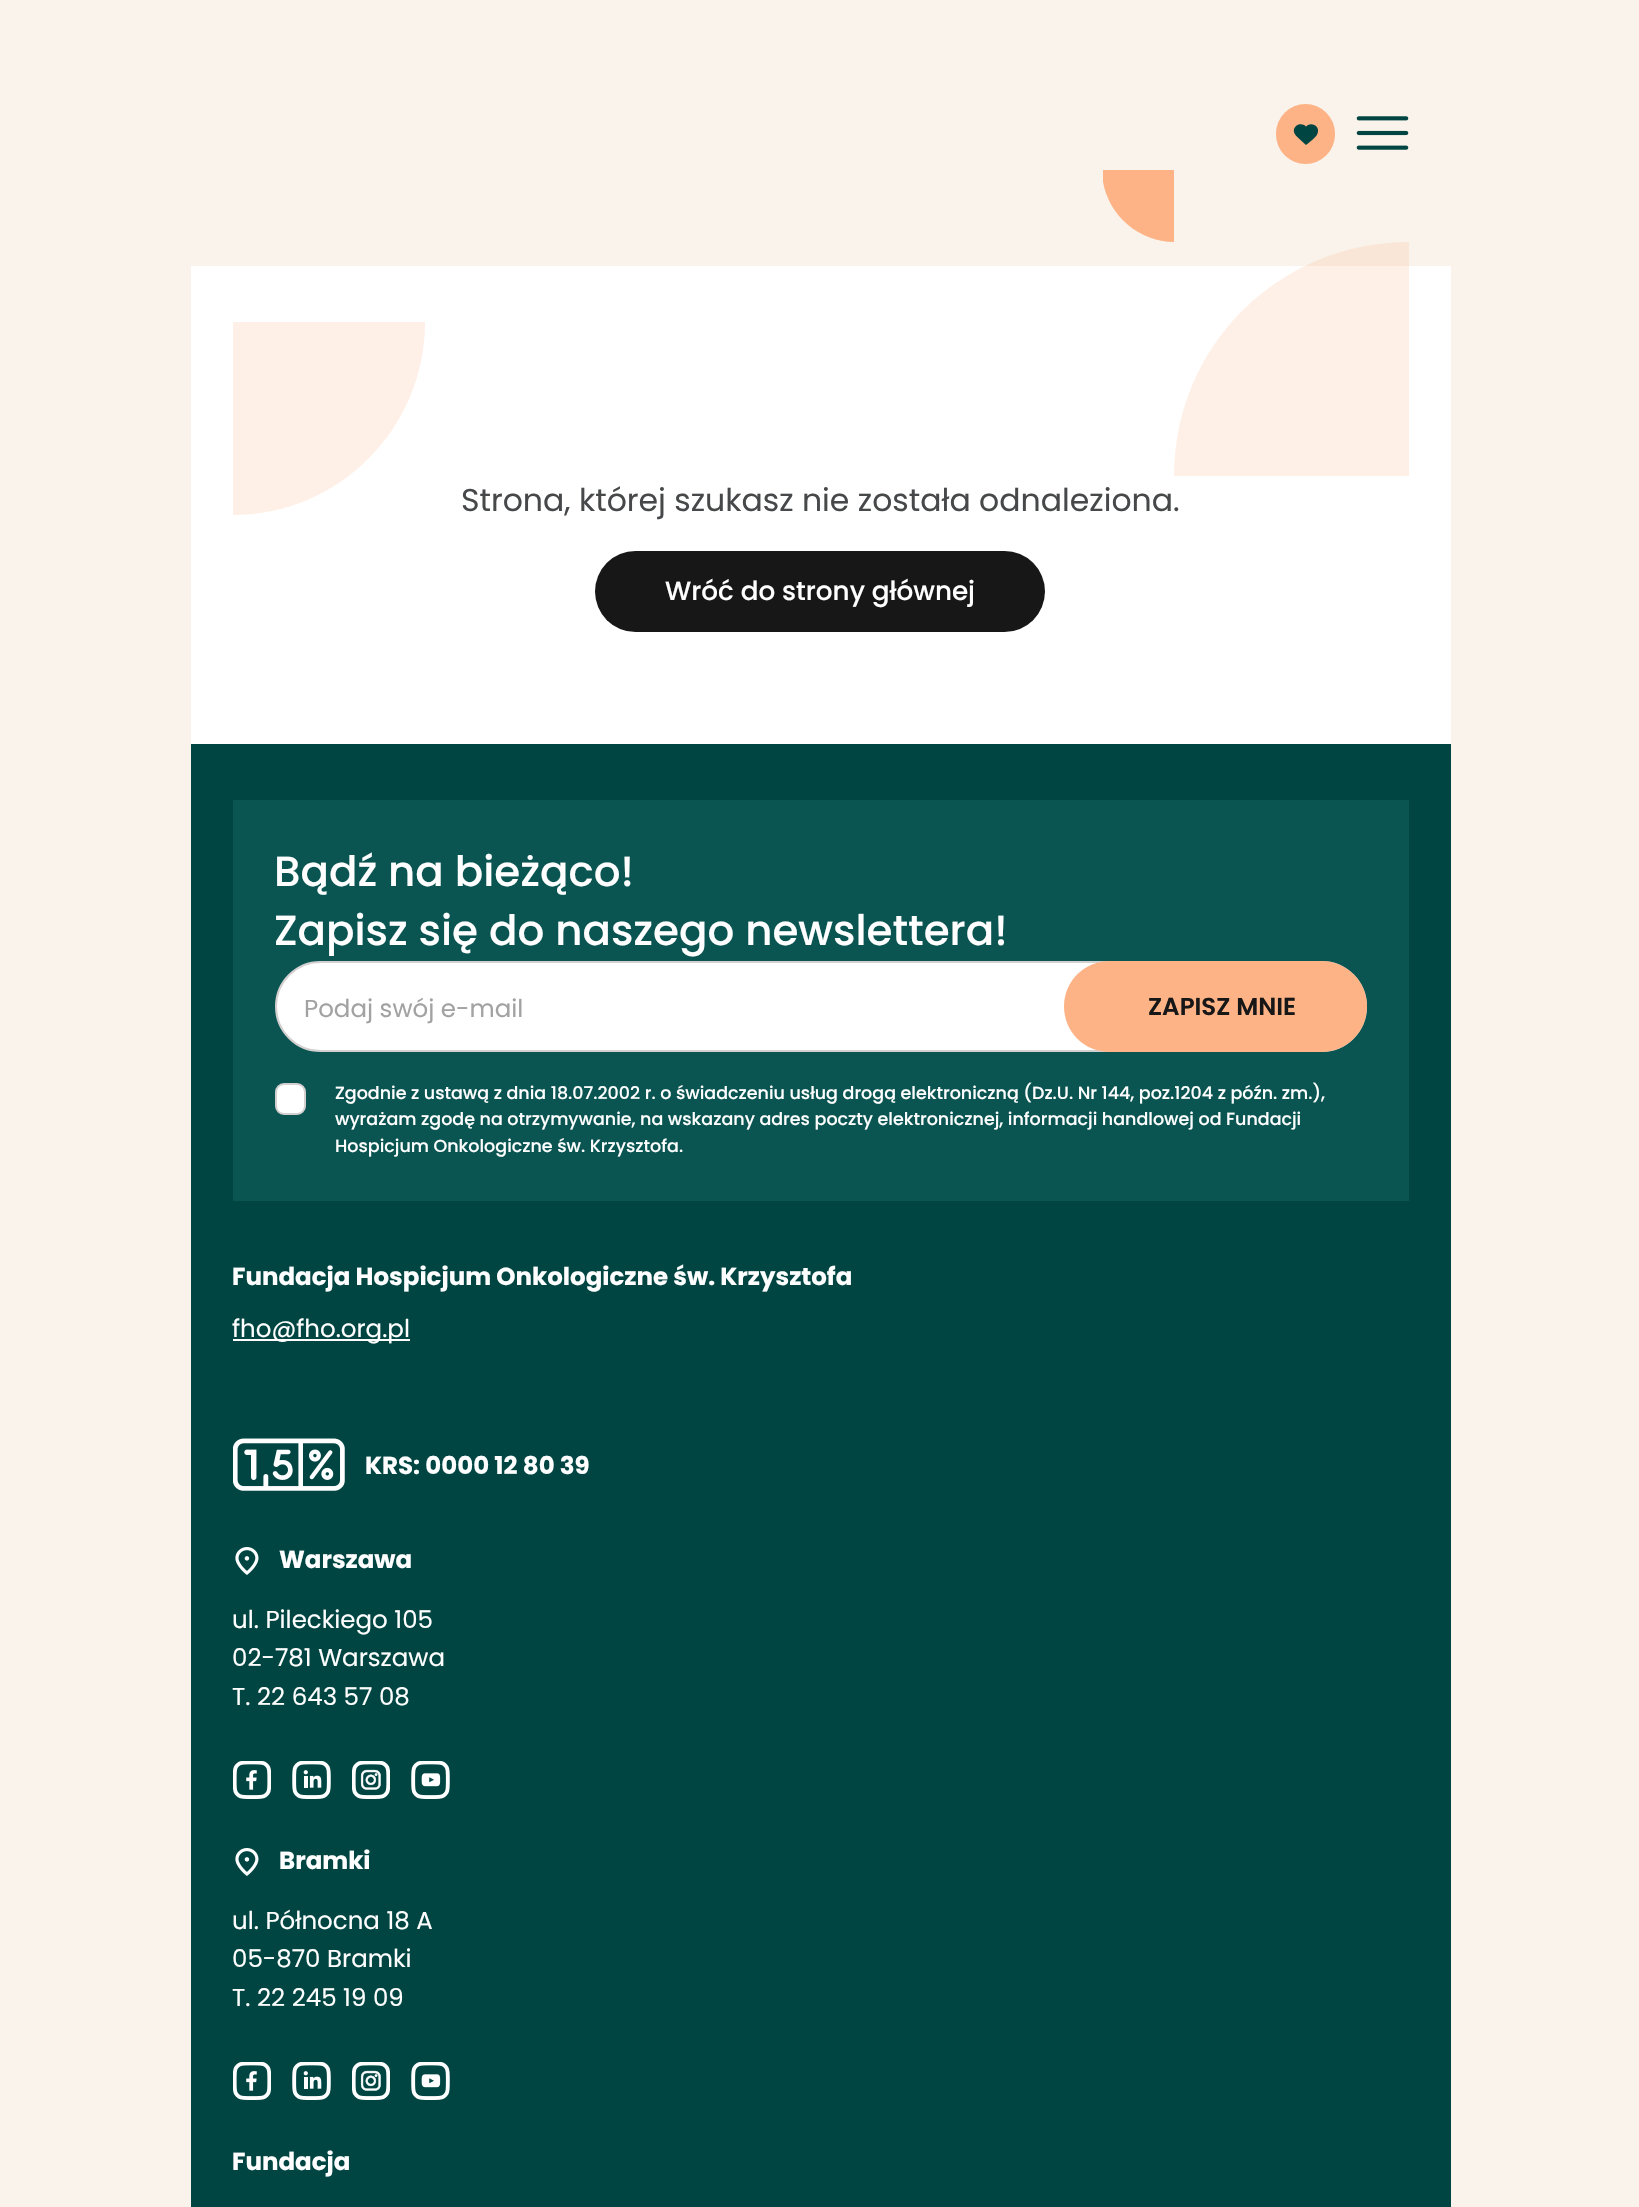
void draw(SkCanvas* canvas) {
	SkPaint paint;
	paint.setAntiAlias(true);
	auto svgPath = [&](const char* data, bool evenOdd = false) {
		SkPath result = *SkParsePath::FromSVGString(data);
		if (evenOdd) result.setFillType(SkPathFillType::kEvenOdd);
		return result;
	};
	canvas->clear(0xfff9f3eb);
	paint.setColor(0xfffdb385);
	canvas->drawRoundRect(SkRect::MakeXYWH(1276, 104, 59, 60), 29.5, 29.5, paint);
	paint.setColor(0xff004542);
	canvas->drawPath(svgPath("M1296 126C1290.5 131.5 1296.5 136.5 1300.5 140L1306 145C1309 142.5 1316.5 137 1317.5 133.5C1320.5 126.5 1311.5 121 1306 126.5C1303.5 123.5 1298.5 123.5 1296 126Z", true), paint);
	canvas->drawImageRect(SkImages::DeferredFromEncodedData(SkData::MakeFromFileName("img1.png")), SkRect::MakeXYWH(1356, 116, 53, 34), SkSamplingOptions());
	paint.setColor(0xffffffff);
	canvas->drawRect(SkRect::MakeXYWH(191, 266, 1260, 478), paint);
	paint.setColor(0xfffff0e7);
	canvas->drawPath(svgPath("M425 322C425 428 339 515 233 515V322Z"), paint);
	paint.setColor(0x33fdb385);
	canvas->drawPath(svgPath("M1174 476C1174 346 1279 242 1409 242V476Z"), paint);
	canvas->save();
	canvas->clipRect(SkRect::MakeXYWH(1103, 170, 306, 306));
	paint.setColor(0xfffdb385);
	canvas->drawPath(svgPath("M1174 242C1135 242 1102 209 1102 170H1174Z"), paint);
	canvas->restore();
	SkFont f1(fontMgr->matchFamilyStyle("Poppins", SkFontStyle::Normal()), 31.5);
	f1.setSubpixel(true);
	paint.setColor(0xff474849);
	canvas->drawString("Strona, której szukasz nie została odnaleziona.", 461, 511, f1, paint);
	paint.setColor(0xff181718);
	canvas->drawRoundRect(SkRect::MakeXYWH(595, 551, 450, 81), 40.5, 40.5, paint);
	SkFont f2(fontMgr->matchFamilyStyle("Poppins", SkFontStyle(500, SkFontStyle::kNormal_Width, SkFontStyle::kUpright_Slant)), 26.25);
	f2.setSubpixel(true);
	paint.setColor(0xffffffff);
	canvas->drawString("Wróć do strony głównej", 665, 600, f2, paint);
	paint.setColor(0xff004542);
	canvas->drawRect(SkRect::MakeXYWH(191, 744, 1260, 1463), paint);
	paint.setColor(0xff0a5552);
	canvas->drawRect(SkRect::MakeXYWH(233, 800, 1176, 401), paint);
	SkFont f3(fontMgr->matchFamilyStyle("Poppins", SkFontStyle(500, SkFontStyle::kNormal_Width, SkFontStyle::kUpright_Slant)), 42);
	f3.setSubpixel(true);
	paint.setColor(0xffffffff);
	canvas->drawString("Bądź na bieżąco!", 274, 886, f3, paint);
	canvas->drawString("Zapisz się do naszego newslettera!", 274, 945, f3, paint);
	canvas->drawRoundRect(SkRect::MakeXYWH(276, 962, 1090, 89), 44.5, 44.5, paint);
	paint.setStroke(true);
	paint.setStrokeWidth(2);
	paint.setColor(0xffd4d0d0);
	canvas->drawRoundRect(SkRect::MakeXYWH(276, 962, 1090, 89), 44.5, 44.5, paint);
	SkFont f4(fontMgr->matchFamilyStyle("Poppins", SkFontStyle::Normal()), 24.5);
	f4.setSubpixel(true);
	paint.setStroke(false);
	paint.setColor(0xffa3a2a3);
	canvas->drawString("Podaj swój e-mail", 304, 1017, f4, paint);
	paint.setColor(0xfffdb385);
	canvas->drawRoundRect(SkRect::MakeXYWH(1064, 961, 303, 91), 45.5, 45.5, paint);
	SkFont f5(fontMgr->matchFamilyStyle("Poppins", SkFontStyle(600, SkFontStyle::kNormal_Width, SkFontStyle::kUpright_Slant)), 24.5);
	f5.setSubpixel(true);
	paint.setColor(0xff181718);
	canvas->drawString("ZAPISZ MNIE", 1148, 1015, f5, paint);
	paint.setColor(0xffffffff);
	canvas->drawRoundRect(SkRect::MakeXYWH(276, 1084, 29, 30), 8, 8, paint);
	paint.setStroke(true);
	paint.setColor(0xffd4d0d0);
	canvas->drawRoundRect(SkRect::MakeXYWH(276, 1084, 29, 30), 8, 8, paint);
	SkFont f6(fontMgr->matchFamilyStyle("Poppins", SkFontStyle(500, SkFontStyle::kNormal_Width, SkFontStyle::kUpright_Slant)), 17.5);
	f6.setSubpixel(true);
	paint.setStroke(false);
	paint.setColor(0xffffffff);
	canvas->drawString("Zgodnie z ustawą z dnia 18.07.2002 r. o świadczeniu usług drogą elektroniczną (Dz.U. Nr 144, poz.1204 z późn. zm.),", 335, 1099, f6, paint);
	canvas->drawString("wyrażam zgodę na otrzymywanie, na wskazany adres poczty elektronicznej, informacji handlowej od Fundacji", 335, 1125, f6, paint);
	canvas->drawString("Hospicjum Onkologiczne św. Krzysztofa.", 335, 1152, f6, paint);
	SkFont f7(fontMgr->matchFamilyStyle("Poppins", SkFontStyle::Bold()), 24.5);
	f7.setSubpixel(true);
	canvas->drawString("Fundacja Hospicjum Onkologiczne św. Krzysztofa", 232, 1285, f7, paint);
	canvas->drawRect(SkRect::MakeXYWH(233, 1339, 177, 2), paint);
	canvas->drawString("fho@fho.org.pl", 232, 1337, f4, paint);
	canvas->drawImageRect(SkImages::DeferredFromEncodedData(SkData::MakeFromFileName("img2.png")), SkRect::MakeXYWH(233, 1438, 112, 53), SkSamplingOptions());
	canvas->drawString("KRS: 0000 12 80 39", 365, 1474, f7, paint);
	canvas->drawImageRect(SkImages::DeferredFromEncodedData(SkData::MakeFromFileName("img3.png")), SkRect::MakeXYWH(235, 1547, 24, 28), SkSamplingOptions());
	canvas->drawString("Warszawa", 279, 1568, f7, paint);
	canvas->drawString("ul. Pileckiego 105", 232, 1628, f4, paint);
	canvas->drawString("02-781 Warszawa", 232, 1666, f4, paint);
	canvas->drawString("T. 22 643 57 08", 232, 1705, f4, paint);
	canvas->drawImageRect(SkImages::DeferredFromEncodedData(SkData::MakeFromFileName("img4.png")), SkRect::MakeXYWH(233, 1761, 38, 38), SkSamplingOptions());
	canvas->drawImageRect(SkImages::DeferredFromEncodedData(SkData::MakeFromFileName("img5.png")), SkRect::MakeXYWH(292, 1761, 39, 38), SkSamplingOptions());
	canvas->drawImageRect(SkImages::DeferredFromEncodedData(SkData::MakeFromFileName("img6.png")), SkRect::MakeXYWH(352, 1761, 38, 38), SkSamplingOptions());
	canvas->drawImageRect(SkImages::DeferredFromEncodedData(SkData::MakeFromFileName("img7.png")), SkRect::MakeXYWH(411, 1761, 39, 38), SkSamplingOptions());
	canvas->drawImageRect(SkImages::DeferredFromEncodedData(SkData::MakeFromFileName("img3.png")), SkRect::MakeXYWH(235, 1848, 24, 28), SkSamplingOptions());
	canvas->drawString("Bramki", 279, 1869, f7, paint);
	canvas->drawString("ul. Północna 18 A", 232, 1929, f4, paint);
	canvas->drawString("05-870 Bramki", 232, 1967, f4, paint);
	canvas->drawString("T. 22 245 19 09", 232, 2006, f4, paint);
	canvas->drawImageRect(SkImages::DeferredFromEncodedData(SkData::MakeFromFileName("img4.png")), SkRect::MakeXYWH(233, 2062, 38, 38), SkSamplingOptions());
	canvas->drawImageRect(SkImages::DeferredFromEncodedData(SkData::MakeFromFileName("img5.png")), SkRect::MakeXYWH(292, 2062, 39, 38), SkSamplingOptions());
	canvas->drawImageRect(SkImages::DeferredFromEncodedData(SkData::MakeFromFileName("img6.png")), SkRect::MakeXYWH(352, 2062, 38, 38), SkSamplingOptions());
	canvas->drawImageRect(SkImages::DeferredFromEncodedData(SkData::MakeFromFileName("img7.png")), SkRect::MakeXYWH(411, 2062, 39, 38), SkSamplingOptions());
	canvas->drawString("Fundacja", 232, 2170, f7, paint);
}
